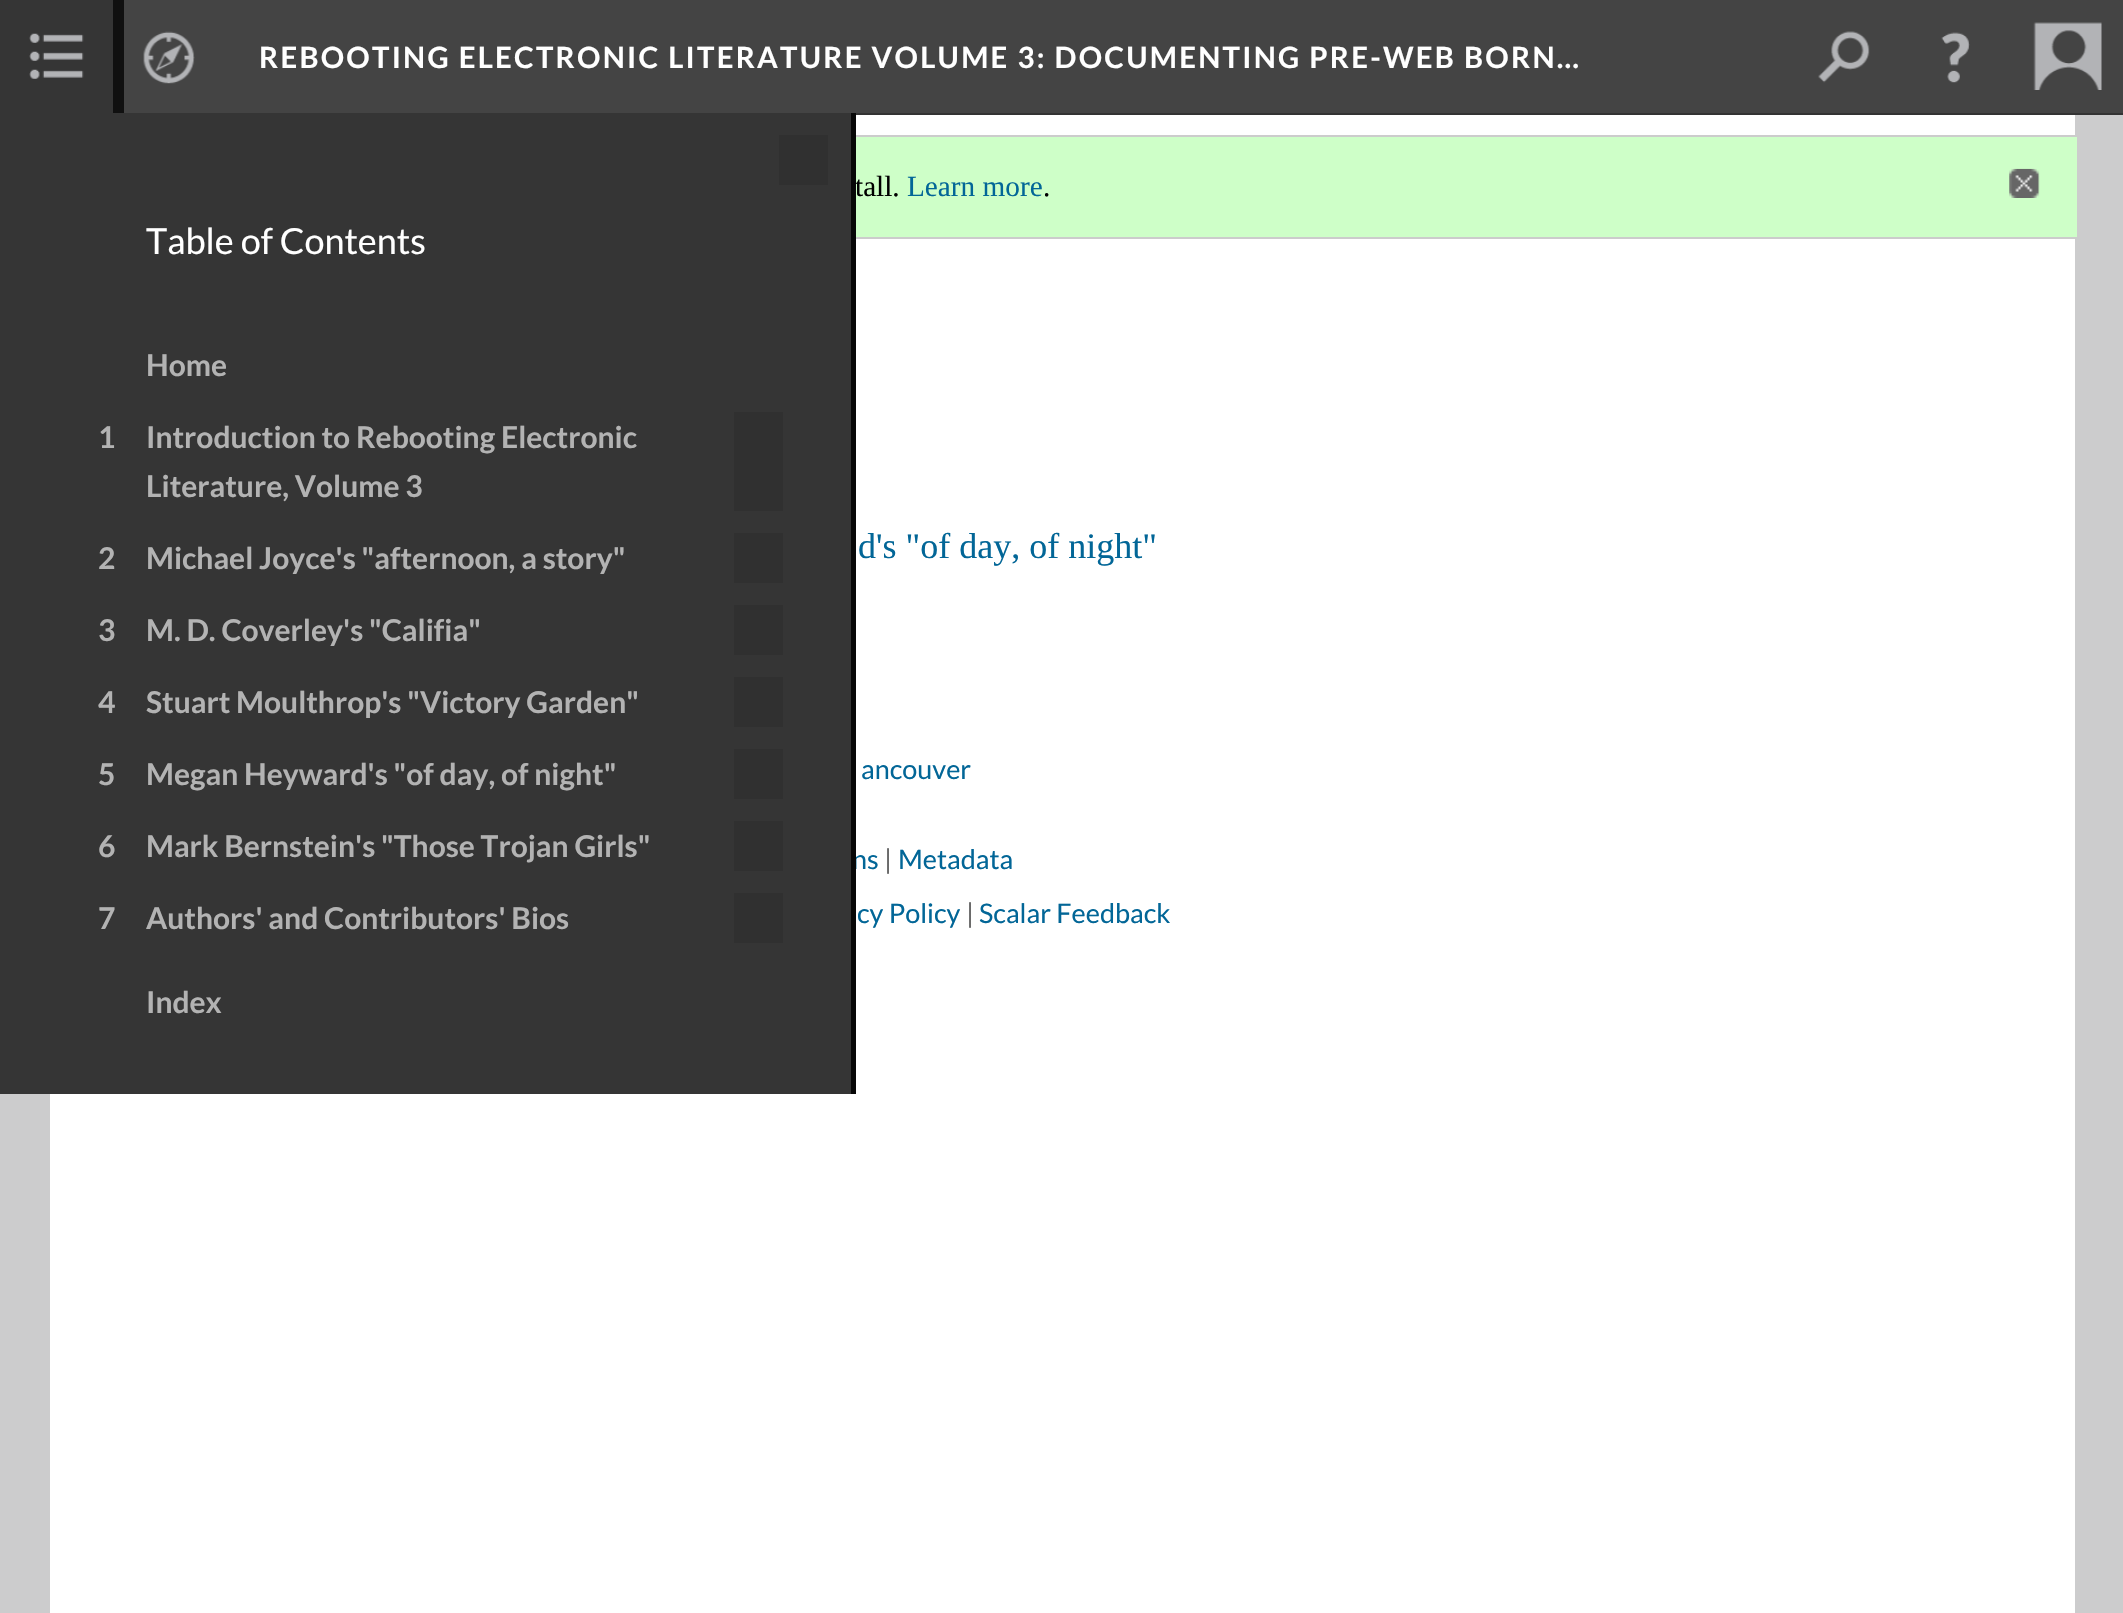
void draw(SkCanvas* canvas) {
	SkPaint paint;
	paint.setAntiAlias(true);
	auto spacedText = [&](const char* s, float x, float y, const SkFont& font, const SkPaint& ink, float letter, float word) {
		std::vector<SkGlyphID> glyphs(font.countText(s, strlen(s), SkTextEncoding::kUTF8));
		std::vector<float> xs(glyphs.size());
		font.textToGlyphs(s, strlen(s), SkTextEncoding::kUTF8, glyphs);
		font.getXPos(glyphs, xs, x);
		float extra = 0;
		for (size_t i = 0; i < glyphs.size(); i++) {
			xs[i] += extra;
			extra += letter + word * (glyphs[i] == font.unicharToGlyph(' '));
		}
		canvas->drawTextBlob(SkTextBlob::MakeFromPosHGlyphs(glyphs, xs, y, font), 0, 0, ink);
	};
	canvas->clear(0xffcccccd);
	paint.setColor(0xff444444);
	canvas->drawRect(SkRect::MakeXYWH(124, 0, 1999, 113), paint);
	paint.setColor(0xff333333);
	canvas->drawRect(SkRect::MakeXYWH(856, 113, 1267, 2), paint);
	SkFont f1(fontMgr->matchFamilyStyle("Lato", SkFontStyle::Bold()), 29.25);
	f1.setSubpixel(true);
	paint.setColor(0xffffffff);
	spacedText("REBOOTING ELECTRONIC LITERATURE VOLUME 3: DOCUMENTING PRE-WEB BORN…", 259, 68, f1, paint, 2.25, 0);
	canvas->drawImageRect(SkImages::DeferredFromEncodedData(SkData::MakeFromFileName("img1.png")), SkRect::MakeXYWH(1818, 31, 52, 52), SkSamplingOptions());
	canvas->drawImageRect(SkImages::DeferredFromEncodedData(SkData::MakeFromFileName("img2.png")), SkRect::MakeXYWH(1941, 32, 29, 51), SkSamplingOptions());
	canvas->drawImageRect(SkImages::DeferredFromEncodedData(SkData::MakeFromFileName("img3.png")), SkRect::MakeXYWH(2033, 22, 69, 68), SkSamplingOptions());
	canvas->drawImageRect(SkImages::DeferredFromEncodedData(SkData::MakeFromFileName("img4.png")), SkRect::MakeXYWH(143, 31, 52, 53), SkSamplingOptions());
	paint.setColor(0xff353535);
	canvas->drawRect(SkRect::MakeXYWH(0, 0, 113, 113), paint);
	canvas->drawImageRect(SkImages::DeferredFromEncodedData(SkData::MakeFromFileName("img5.png")), SkRect::MakeXYWH(29, 33, 55, 46), SkSamplingOptions());
	paint.setColor(0xffffffff);
	canvas->drawRect(SkRect::MakeXYWH(50, 115, 2025, 1498), paint);
	paint.setStroke(true);
	paint.setStrokeWidth(11);
	paint.setColor(0xff101010);
	canvas->drawRect(SkRect::MakeXYWH(-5.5, -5.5, 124, 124), paint);
	paint.setStroke(false);
	paint.setColor(0xffceffc8);
	canvas->drawRect(SkRect::MakeXYWH(856, 137, 1221, 100), paint);
	paint.setStroke(true);
	paint.setStrokeWidth(2);
	paint.setColor(0xffcccccc);
	canvas->drawRect(SkRect::MakeXYWH(24, 136, 2054, 102), paint);
	paint.setStroke(false);
	paint.setColor(0xff353535);
	canvas->drawRect(SkRect::MakeXYWH(0, 113, 851, 981), paint);
	SkFont f2(fontMgr->matchFamilyStyle("Liberation Serif", SkFontStyle::Normal()), 29.25);
	f2.setSubpixel(true);
	paint.setColor(0xff000000);
	canvas->drawString("tall.", 855, 196, f2, paint);
	SkFont f3(fontMgr->matchFamilyStyle("Lato", SkFontStyle::Normal()), 27);
	f3.setSubpixel(true);
	paint.setColor(0xff026697);
	canvas->drawString("ns", 852, 869, f3, paint);
	paint.setColor(0xff070707);
	canvas->drawRect(SkRect::MakeXYWH(851, 113, 5, 981), paint);
	paint.setColor(0xff303030);
	canvas->drawRect(SkRect::MakeXYWH(779, 135, 49, 50), paint);
	SkFont f4(fontMgr->matchFamilyStyle("Lato", SkFontStyle::Normal()), 36);
	f4.setSubpixel(true);
	paint.setColor(0xffffffff);
	canvas->drawString("Table of Contents", 146, 254, f4, paint);
	SkFont f5(fontMgr->matchFamilyStyle("Lato", SkFontStyle::Bold()), 30);
	f5.setSubpixel(true);
	paint.setColor(0xffb3b3b3);
	canvas->drawString("Home", 146, 376, f5, paint);
	canvas->drawString("1", 98, 448, f5, paint);
	canvas->drawString("Introduction to Rebooting Electronic", 146, 448, f5, paint);
	canvas->drawString("Literature, Volume 3", 146, 497, f5, paint);
	paint.setColor(0xff303030);
	canvas->drawRect(SkRect::MakeXYWH(734, 412, 49, 99), paint);
	paint.setColor(0xffb3b3b3);
	canvas->drawString("2", 98, 569, f5, paint);
	canvas->drawString("Michael Joyce's \"afternoon, a story\"", 146, 569, f5, paint);
	paint.setColor(0xff303030);
	canvas->drawRect(SkRect::MakeXYWH(734, 533, 49, 50), paint);
	paint.setColor(0xffb3b3b3);
	canvas->drawString("3", 98, 641, f5, paint);
	canvas->drawString("M. D. Coverley's \"Califia\"", 146, 641, f5, paint);
	paint.setColor(0xff303030);
	canvas->drawRect(SkRect::MakeXYWH(734, 605, 49, 50), paint);
	paint.setColor(0xffb3b3b3);
	canvas->drawString("4", 98, 713, f5, paint);
	canvas->drawString("Stuart Moulthrop's \"Victory Garden\"", 146, 713, f5, paint);
	paint.setColor(0xff303030);
	canvas->drawRect(SkRect::MakeXYWH(734, 677, 49, 50), paint);
	paint.setColor(0xffb3b3b3);
	canvas->drawString("5", 98, 785, f5, paint);
	canvas->drawString("Megan Heyward's \"of day, of night\"", 146, 785, f5, paint);
	paint.setColor(0xff303030);
	canvas->drawRect(SkRect::MakeXYWH(734, 749, 49, 50), paint);
	paint.setColor(0xffb3b3b3);
	canvas->drawString("6", 98, 857, f5, paint);
	canvas->drawString("Mark Bernstein's \"Those Trojan Girls\"", 146, 857, f5, paint);
	paint.setColor(0xff303030);
	canvas->drawRect(SkRect::MakeXYWH(734, 821, 49, 50), paint);
	paint.setColor(0xffb3b3b3);
	canvas->drawString("7", 98, 929, f5, paint);
	canvas->drawString("Authors' and Contributors' Bios", 146, 929, f5, paint);
	paint.setColor(0xff303030);
	canvas->drawRect(SkRect::MakeXYWH(734, 893, 49, 50), paint);
	paint.setColor(0xffb3b3b3);
	canvas->drawString("Index", 146, 1013, f5, paint);
	paint.setColor(0xff026697);
	canvas->drawString("Learn more", 907, 196, f2, paint);
	paint.setColor(0xff000000);
	canvas->drawString(".", 1043, 196, f2, paint);
	canvas->drawImageRect(SkImages::DeferredFromEncodedData(SkData::MakeFromFileName("img6.png")), SkRect::MakeXYWH(2009, 168, 31, 30), SkSamplingOptions());
	SkFont f6(fontMgr->matchFamilyStyle("Liberation Serif", SkFontStyle::Normal()), 36);
	f6.setSubpixel(true);
	paint.setColor(0xff026697);
	canvas->drawString("d's \"of day, of night\"", 858, 558, f6, paint);
	canvas->drawString("ancouver", 861, 779, f3, paint);
	paint.setColor(0xff666666);
	canvas->drawString("|", 884, 869, f3, paint);
	paint.setColor(0xff026697);
	canvas->drawString("Metadata", 898, 869, f3, paint);
	canvas->drawString("cy Policy", 857, 923, f3, paint);
	paint.setColor(0xff666666);
	canvas->drawString("|", 966, 923, f3, paint);
	paint.setColor(0xff026697);
	canvas->drawString("Scalar Feedback", 979, 923, f3, paint);
}
